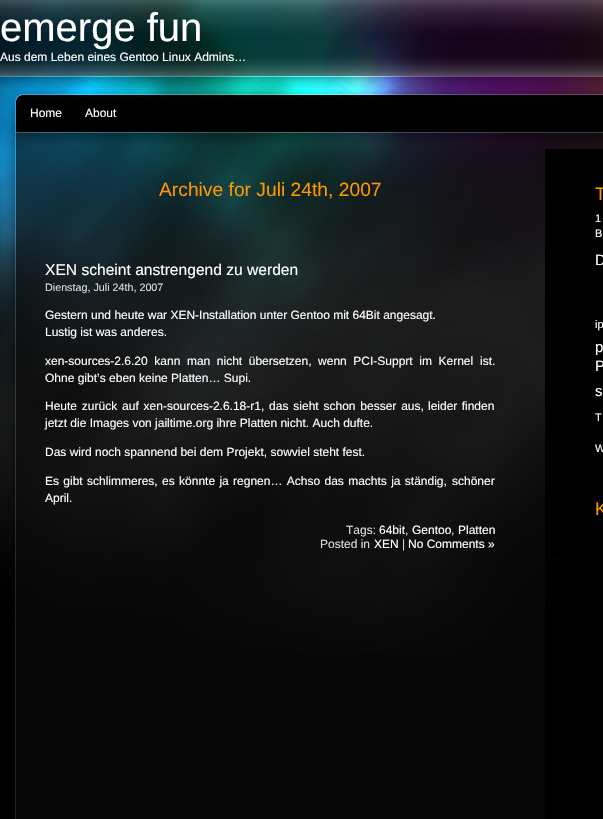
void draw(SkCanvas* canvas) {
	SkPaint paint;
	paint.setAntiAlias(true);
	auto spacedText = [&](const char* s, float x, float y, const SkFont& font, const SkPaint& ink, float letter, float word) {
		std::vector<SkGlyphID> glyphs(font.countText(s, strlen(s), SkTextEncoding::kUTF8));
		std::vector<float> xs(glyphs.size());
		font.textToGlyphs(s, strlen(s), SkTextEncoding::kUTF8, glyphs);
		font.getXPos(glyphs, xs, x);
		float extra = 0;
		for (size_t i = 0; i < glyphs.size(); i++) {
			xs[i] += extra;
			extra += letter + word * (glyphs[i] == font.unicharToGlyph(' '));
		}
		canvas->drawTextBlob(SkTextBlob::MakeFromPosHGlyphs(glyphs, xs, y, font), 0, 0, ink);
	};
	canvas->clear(0xff000000);
	canvas->drawImageRect(SkImages::DeferredFromEncodedData(SkData::MakeFromFileName("img1.png")), SkRect::MakeXYWH(0, 0, 603, 654), SkSamplingOptions());
	canvas->drawImageRect(SkImages::DeferredFromEncodedData(SkData::MakeFromFileName("img2.png")), SkRect::MakeXYWH(0, 0, 603, 88), SkSamplingOptions());
	SkFont f1(fontMgr->matchFamilyStyle("Liberation Sans", SkFontStyle::Normal()), 40);
	f1.setSubpixel(true);
	paint.setColor(0xffffffff);
	canvas->drawString("emerge fun", 0, 41, f1, paint);
	SkFont f2(fontMgr->matchFamilyStyle("Liberation Sans", SkFontStyle::Normal()), 12);
	f2.setSubpixel(true);
	canvas->drawString("Aus dem Leben eines Gentoo Linux Admins…", 0, 61, f2, paint);
	canvas->drawImageRect(SkImages::DeferredFromEncodedData(SkData::MakeFromFileName("img3.png")), SkRect::MakeXYWH(4, 91, 599, 58), SkSamplingOptions());
	canvas->drawString("Home", 30, 117, f2, paint);
	canvas->drawString("About", 85, 117, f2, paint);
	canvas->drawImageRect(SkImages::DeferredFromEncodedData(SkData::MakeFromFileName("img4.png")), SkRect::MakeXYWH(4, 149, 541, 670), SkSamplingOptions());
	SkFont f3(fontMgr->matchFamilyStyle("Liberation Sans", SkFontStyle::Normal()), 19.25);
	f3.setSubpixel(true);
	paint.setColor(0xffff9600);
	canvas->drawString("Archive for Juli 24th, 2007", 159, 196, f3, paint);
	SkFont f4(fontMgr->matchFamilyStyle("Liberation Sans", SkFontStyle::Normal()), 15.6);
	f4.setSubpixel(true);
	paint.setColor(0xffffffff);
	canvas->drawString("XEN scheint anstrengend zu werden", 45, 275, f4, paint);
	SkFont f5(fontMgr->matchFamilyStyle("Liberation Sans", SkFontStyle::Normal()), 10.75);
	f5.setSubpixel(true);
	paint.setColor(0xffdddddd);
	canvas->drawString("Dienstag, Juli 24th, 2007", 45, 291, f5, paint);
	paint.setColor(0xffffffff);
	canvas->drawString("Gestern und heute war XEN-Installation unter Gentoo mit 64Bit angesagt.", 45, 319, f2, paint);
	canvas->drawString("Lustig ist was anderes.", 45, 336, f2, paint);
	spacedText("xen-sources-2.6.20 kann man nicht übersetzen, wenn PCI-Supprt im Kernel", 45, 365, f2, paint, 0, 3.25);
	canvas->drawString("ist.", 480, 365, f2, paint);
	canvas->drawString("Ohne gibt’s eben keine Platten… Supi.", 45, 382, f2, paint);
	spacedText("Heute zurück auf xen-sources-2.6.18-r1, das sieht schon besser aus,", 45, 410, f2, paint, 0, 1.5);
	spacedText("leider finden", 428, 410, f2, paint, 0, 1);
	canvas->drawString("jetzt die Images von jailtime.org ihre Platten nicht. Auch dufte.", 45, 427, f2, paint);
	canvas->drawString("Das wird noch spannend bei dem Projekt, sowviel steht fest.", 45, 456, f2, paint);
	spacedText("Es gibt schlimmeres, es könnte ja regnen… Achso das machts ja ständig,", 45, 485, f2, paint, 0, 1);
	canvas->drawString("schöner", 452, 485, f2, paint);
	canvas->drawString("April.", 45, 502, f2, paint);
	paint.setColor(0xffdddddd);
	canvas->drawString("Tags:", 346, 534, f2, paint);
	paint.setColor(0xffffffff);
	canvas->drawString("64bit", 379, 534, f2, paint);
	paint.setColor(0xffdddddd);
	canvas->drawString(",", 405, 534, f2, paint);
	paint.setColor(0xffffffff);
	canvas->drawString("Gentoo", 412, 534, f2, paint);
	paint.setColor(0xffdddddd);
	canvas->drawString(",", 451, 534, f2, paint);
	paint.setColor(0xffffffff);
	canvas->drawString("Platten", 458, 534, f2, paint);
	paint.setColor(0xffdddddd);
	canvas->drawString("Posted in", 320, 548, f2, paint);
	paint.setColor(0xffffffff);
	canvas->drawString("XEN", 374, 548, f2, paint);
	paint.setColor(0xffdddddd);
	canvas->drawString("|", 402, 548, f2, paint);
	paint.setColor(0xffffffff);
	canvas->drawString("No Comments »", 408, 548, f2, paint);
	paint.setColor(0xff000000);
	canvas->drawRect(SkRect::MakeXYWH(545, 149, 58, 406), paint);
	SkFont f6(fontMgr->matchFamilyStyle("Liberation Sans", SkFontStyle::Normal()), 18);
	f6.setSubpixel(true);
	paint.setColor(0xffff9600);
	canvas->drawString("T", 595, 200, f6, paint);
	SkFont f7(fontMgr->matchFamilyStyle("Liberation Sans", SkFontStyle::Normal()), 11);
	f7.setSubpixel(true);
	paint.setColor(0xffffffff);
	canvas->drawString("1", 595, 222, f7, paint);
	canvas->drawString("B", 595, 237, f7, paint);
	SkFont f8(fontMgr->matchFamilyStyle("Liberation Sans", SkFontStyle::Normal()), 15);
	f8.setSubpixel(true);
	canvas->drawString("D", 595, 265, f8, paint);
	canvas->drawString("ip", 595, 328, f7, paint);
	canvas->drawString("p", 595, 352, f8, paint);
	canvas->drawString("P", 595, 371, f8, paint);
	canvas->drawString("s", 595, 396, f8, paint);
	canvas->drawString("T", 595, 421, f7, paint);
	canvas->drawString("W", 595, 452, f7, paint);
	paint.setColor(0xffff9600);
	canvas->drawString("K", 595, 515, f6, paint);
}
